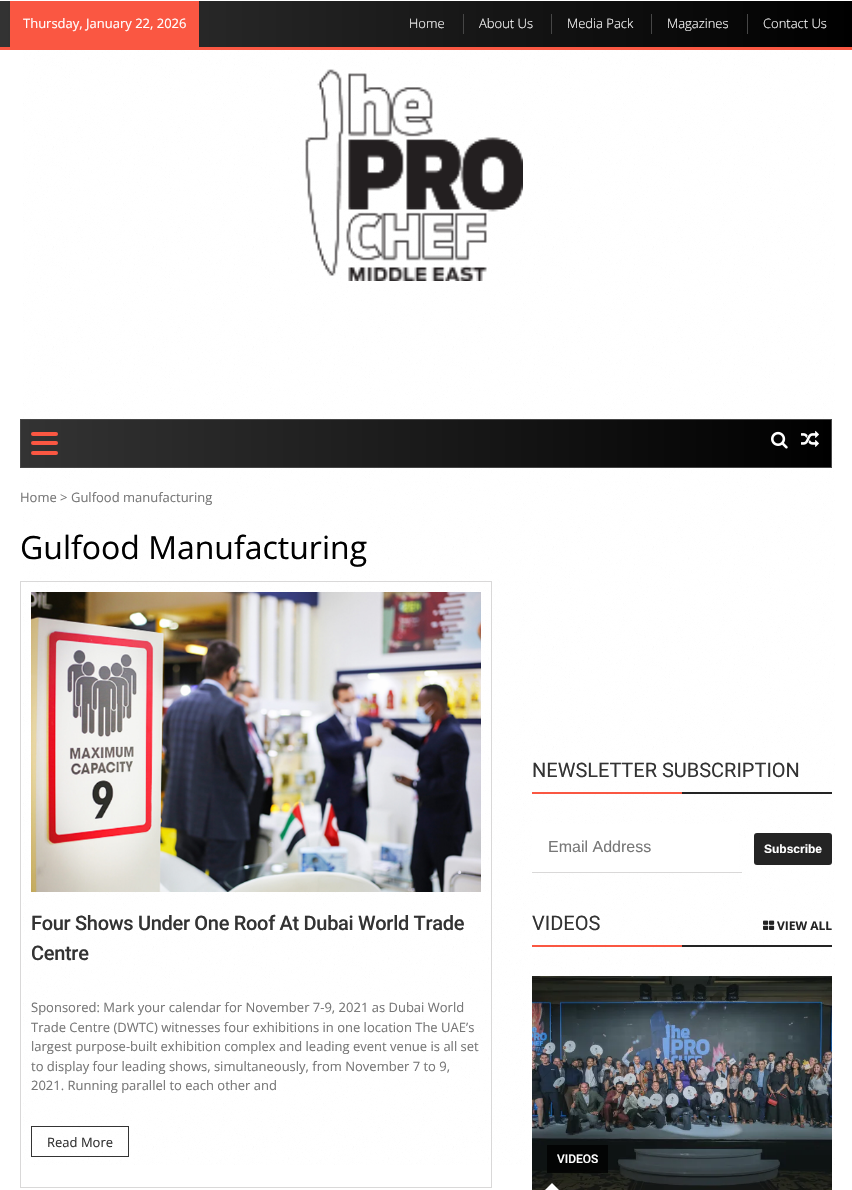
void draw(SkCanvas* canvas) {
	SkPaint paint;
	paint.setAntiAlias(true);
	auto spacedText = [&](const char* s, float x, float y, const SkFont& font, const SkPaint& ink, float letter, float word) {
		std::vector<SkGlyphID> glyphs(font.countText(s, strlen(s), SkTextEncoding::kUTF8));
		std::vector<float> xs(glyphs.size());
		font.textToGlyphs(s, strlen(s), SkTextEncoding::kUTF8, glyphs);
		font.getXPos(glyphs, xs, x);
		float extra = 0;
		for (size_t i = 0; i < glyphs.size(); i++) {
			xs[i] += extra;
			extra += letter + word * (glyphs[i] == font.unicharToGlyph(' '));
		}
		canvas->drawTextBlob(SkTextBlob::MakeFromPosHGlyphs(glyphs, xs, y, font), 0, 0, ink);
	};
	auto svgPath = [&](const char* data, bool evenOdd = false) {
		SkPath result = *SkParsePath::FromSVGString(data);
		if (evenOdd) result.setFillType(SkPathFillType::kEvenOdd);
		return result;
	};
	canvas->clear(0xffffffff);
	canvas->drawImageRect(SkImages::DeferredFromEncodedData(SkData::MakeFromFileName("img1.png")), SkRect::MakeXYWH(23, 50, 812, 1115), SkSamplingOptions());
	{
		const SkColor colors[] = {0xff333333, 0xff000000};
		const float stops[] = {0, 1};
		const SkPoint ends[] = {{0, 24}, {852, 24}};
		paint.setShader(SkGradientShader::MakeLinear(ends, colors, stops, 2, SkTileMode::kClamp));
		paint.setAlpha(255);
	}
	canvas->drawRect(SkRect::MakeXYWH(0, 1, 852, 46), paint);
	paint.setShader(nullptr);
	paint.setColor(0xfffa5742);
	canvas->drawRect(SkRect::MakeXYWH(0, 47, 852, 3), paint);
	canvas->drawRect(SkRect::MakeXYWH(10, 1, 189, 46), paint);
	SkFont f1(fontMgr->matchFamilyStyle("Open Sans", SkFontStyle::Normal()), 13);
	f1.setSubpixel(true);
	paint.setColor(0xffffffff);
	canvas->drawString("Thursday, January 22, 2026", 23, 28, f1, paint);
	SkFont f2(fontMgr->matchFamilyStyle("Open Sans", SkFontStyle(300, SkFontStyle::kNormal_Width, SkFontStyle::kUpright_Slant)), 13);
	f2.setSubpixel(true);
	canvas->drawString("Home", 409, 28, f2, paint);
	paint.setColor(0xff464646);
	canvas->drawRect(SkRect::MakeXYWH(463, 14, 1, 20), paint);
	paint.setColor(0xffffffff);
	canvas->drawString("About Us", 479, 28, f2, paint);
	paint.setColor(0xff464646);
	canvas->drawRect(SkRect::MakeXYWH(551, 14, 1, 20), paint);
	paint.setColor(0xffffffff);
	canvas->drawString("Media Pack", 567, 28, f2, paint);
	paint.setColor(0xff464646);
	canvas->drawRect(SkRect::MakeXYWH(651, 14, 1, 20), paint);
	paint.setColor(0xffffffff);
	canvas->drawString("Magazines", 667, 28, f2, paint);
	paint.setColor(0xff464646);
	canvas->drawRect(SkRect::MakeXYWH(747, 14, 1, 20), paint);
	paint.setColor(0xffffffff);
	canvas->drawString("Contact Us", 763, 28, f2, paint);
	canvas->drawImageRect(SkImages::DeferredFromEncodedData(SkData::MakeFromFileName("img2.png")), SkRect::MakeXYWH(305, 69, 218, 212), SkSamplingOptions());
	{
		const SkColor colors[] = {0xff333333, 0xff000000};
		const float stops[] = {0, 1};
		const SkPoint ends[] = {{21, 444}, {831, 444}};
		paint.setShader(SkGradientShader::MakeLinear(ends, colors, stops, 2, SkTileMode::kClamp));
		paint.setAlpha(255);
	}
	canvas->drawRect(SkRect::MakeXYWH(21, 420, 810, 47), paint);
	paint.setStroke(true);
	paint.setStrokeWidth(1);
	paint.setShader(nullptr);
	paint.setColor(0xff464646);
	canvas->drawRect(SkRect::MakeXYWH(20.5, 419.5, 811, 48), paint);
	paint.setStroke(false);
	paint.setColor(0xfffa5742);
	canvas->drawRoundRect(SkRect::MakeXYWH(31, 432, 27, 4), 2, 2, paint);
	canvas->drawRoundRect(SkRect::MakeXYWH(31, 441, 27, 4), 2, 2, paint);
	canvas->drawRoundRect(SkRect::MakeXYWH(31, 451, 27, 4), 2, 2, paint);
	canvas->drawImageRect(SkImages::DeferredFromEncodedData(SkData::MakeFromFileName("img3.png")), SkRect::MakeXYWH(771, 431, 17, 18), SkSamplingOptions());
	canvas->drawImageRect(SkImages::DeferredFromEncodedData(SkData::MakeFromFileName("img4.png")), SkRect::MakeXYWH(801, 430, 18, 17), SkSamplingOptions());
	paint.setColor(0xff777777);
	canvas->drawString("Home > Gulfood manufacturing", 20, 502, f1, paint);
	SkFont f3(fontMgr->matchFamilyStyle("Open Sans", SkFontStyle::Normal()), 32);
	f3.setSubpixel(true);
	paint.setColor(0xff000000);
	canvas->drawString("Gulfood Manufacturing", 20, 559, f3, paint);
	paint.setStroke(true);
	paint.setColor(0xffd9d8d8);
	canvas->drawRect(SkRect::MakeXYWH(20.5, 581.5, 471, 606), paint);
	canvas->drawImageRect(SkImages::DeferredFromEncodedData(SkData::MakeFromFileName("img5.png")), SkRect::MakeXYWH(31, 592, 450, 300), SkSamplingOptions());
	SkFont f4(fontMgr->matchFamilyStyle("Roboto", SkFontStyle(500, SkFontStyle::kNormal_Width, SkFontStyle::kUpright_Slant)), 20);
	f4.setSubpixel(true);
	paint.setStroke(false);
	paint.setColor(0xff333333);
	spacedText("Four Shows Under One Roof At Dubai World Trade", 31, 930, f4, paint, -0.3, 0);
	spacedText("Centre", 31, 960, f4, paint, -0.3, 0);
	paint.setColor(0xff777777);
	canvas->drawString("Sponsored: Mark your calendar for November 7-9, 2021 as Dubai World", 31, 1012, f1, paint);
	canvas->drawString("Trade Centre (DWTC) witnesses four exhibitions in one location The UAE’s", 31, 1032, f1, paint);
	canvas->drawString("largest purpose-built exhibition complex and leading event venue is all set", 31, 1051, f1, paint);
	canvas->drawString("to display four leading shows, simultaneously, from November 7 to 9,", 31, 1071, f1, paint);
	canvas->drawString("2021. Running parallel to each other and", 31, 1090, f1, paint);
	paint.setStroke(true);
	paint.setColor(0xff333333);
	canvas->drawRect(SkRect::MakeXYWH(31.5, 1126.5, 97, 30), paint);
	paint.setStroke(false);
	canvas->drawString("Read More", 47, 1147, f1, paint);
	paint.setColor(0xff242424);
	canvas->drawRect(SkRect::MakeXYWH(682, 792, 150, 2), paint);
	SkFont f5(fontMgr->matchFamilyStyle("Roboto", SkFontStyle::Normal()), 20);
	f5.setSubpixel(true);
	paint.setColor(0xff333333);
	canvas->drawString("NEWSLETTER SUBSCRIPTION", 532, 777, f5, paint);
	paint.setColor(0xfffa5742);
	canvas->drawRect(SkRect::MakeXYWH(532, 792, 150, 2), paint);
	paint.setColor(0xffffffff);
	canvas->drawRect(SkRect::MakeXYWH(532, 824, 207, 48), paint);
	paint.setColor(0xffd9d8d8);
	canvas->drawRect(SkRect::MakeXYWH(532, 872, 210, 1), paint);
	SkFont f6(fontMgr->matchFamilyStyle("Liberation Sans", SkFontStyle::Normal()), 16);
	f6.setSubpixel(true);
	paint.setColor(0xff777777);
	canvas->drawString("Email Address", 548, 852, f6, paint);
	paint.setColor(0xff242424);
	canvas->drawRoundRect(SkRect::MakeXYWH(754, 833, 78, 32), 3, 3, paint);
	SkFont f7(fontMgr->matchFamilyStyle("Liberation Sans", SkFontStyle::Bold()), 12);
	f7.setSubpixel(true);
	paint.setColor(0xffffffff);
	canvas->drawString("Subscribe", 764, 853, f7, paint);
	paint.setColor(0xff242424);
	canvas->drawRect(SkRect::MakeXYWH(682, 945, 150, 2), paint);
	paint.setColor(0xff333333);
	canvas->drawString("VIDEOS", 532, 930, f5, paint);
	canvas->drawImageRect(SkImages::DeferredFromEncodedData(SkData::MakeFromFileName("img6.png")), SkRect::MakeXYWH(763, 920, 12, 10), SkSamplingOptions());
	SkFont f8(fontMgr->matchFamilyStyle("Open Sans", SkFontStyle::Bold()), 12);
	f8.setSubpixel(true);
	paint.setColor(0xff242424);
	canvas->drawString("VIEW ALL", 777, 930, f8, paint);
	paint.setColor(0xfffa5742);
	canvas->drawRect(SkRect::MakeXYWH(532, 945, 150, 2), paint);
	canvas->drawImageRect(SkImages::DeferredFromEncodedData(SkData::MakeFromFileName("img7.png")), SkRect::MakeXYWH(532, 976, 300, 214), SkSamplingOptions());
	paint.setColor(0xcc000000);
	canvas->drawRect(SkRect::MakeXYWH(547, 1145, 61, 28), paint);
	SkFont f9(fontMgr->matchFamilyStyle("Roboto", SkFontStyle(500, SkFontStyle::kNormal_Width, SkFontStyle::kUpright_Slant)), 12);
	f9.setSubpixel(true);
	paint.setColor(0xffffffff);
	canvas->drawString("VIDEOS", 557, 1163, f9, paint);
	canvas->drawPath(svgPath("M562 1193H542L552 1183Z"), paint);
}
